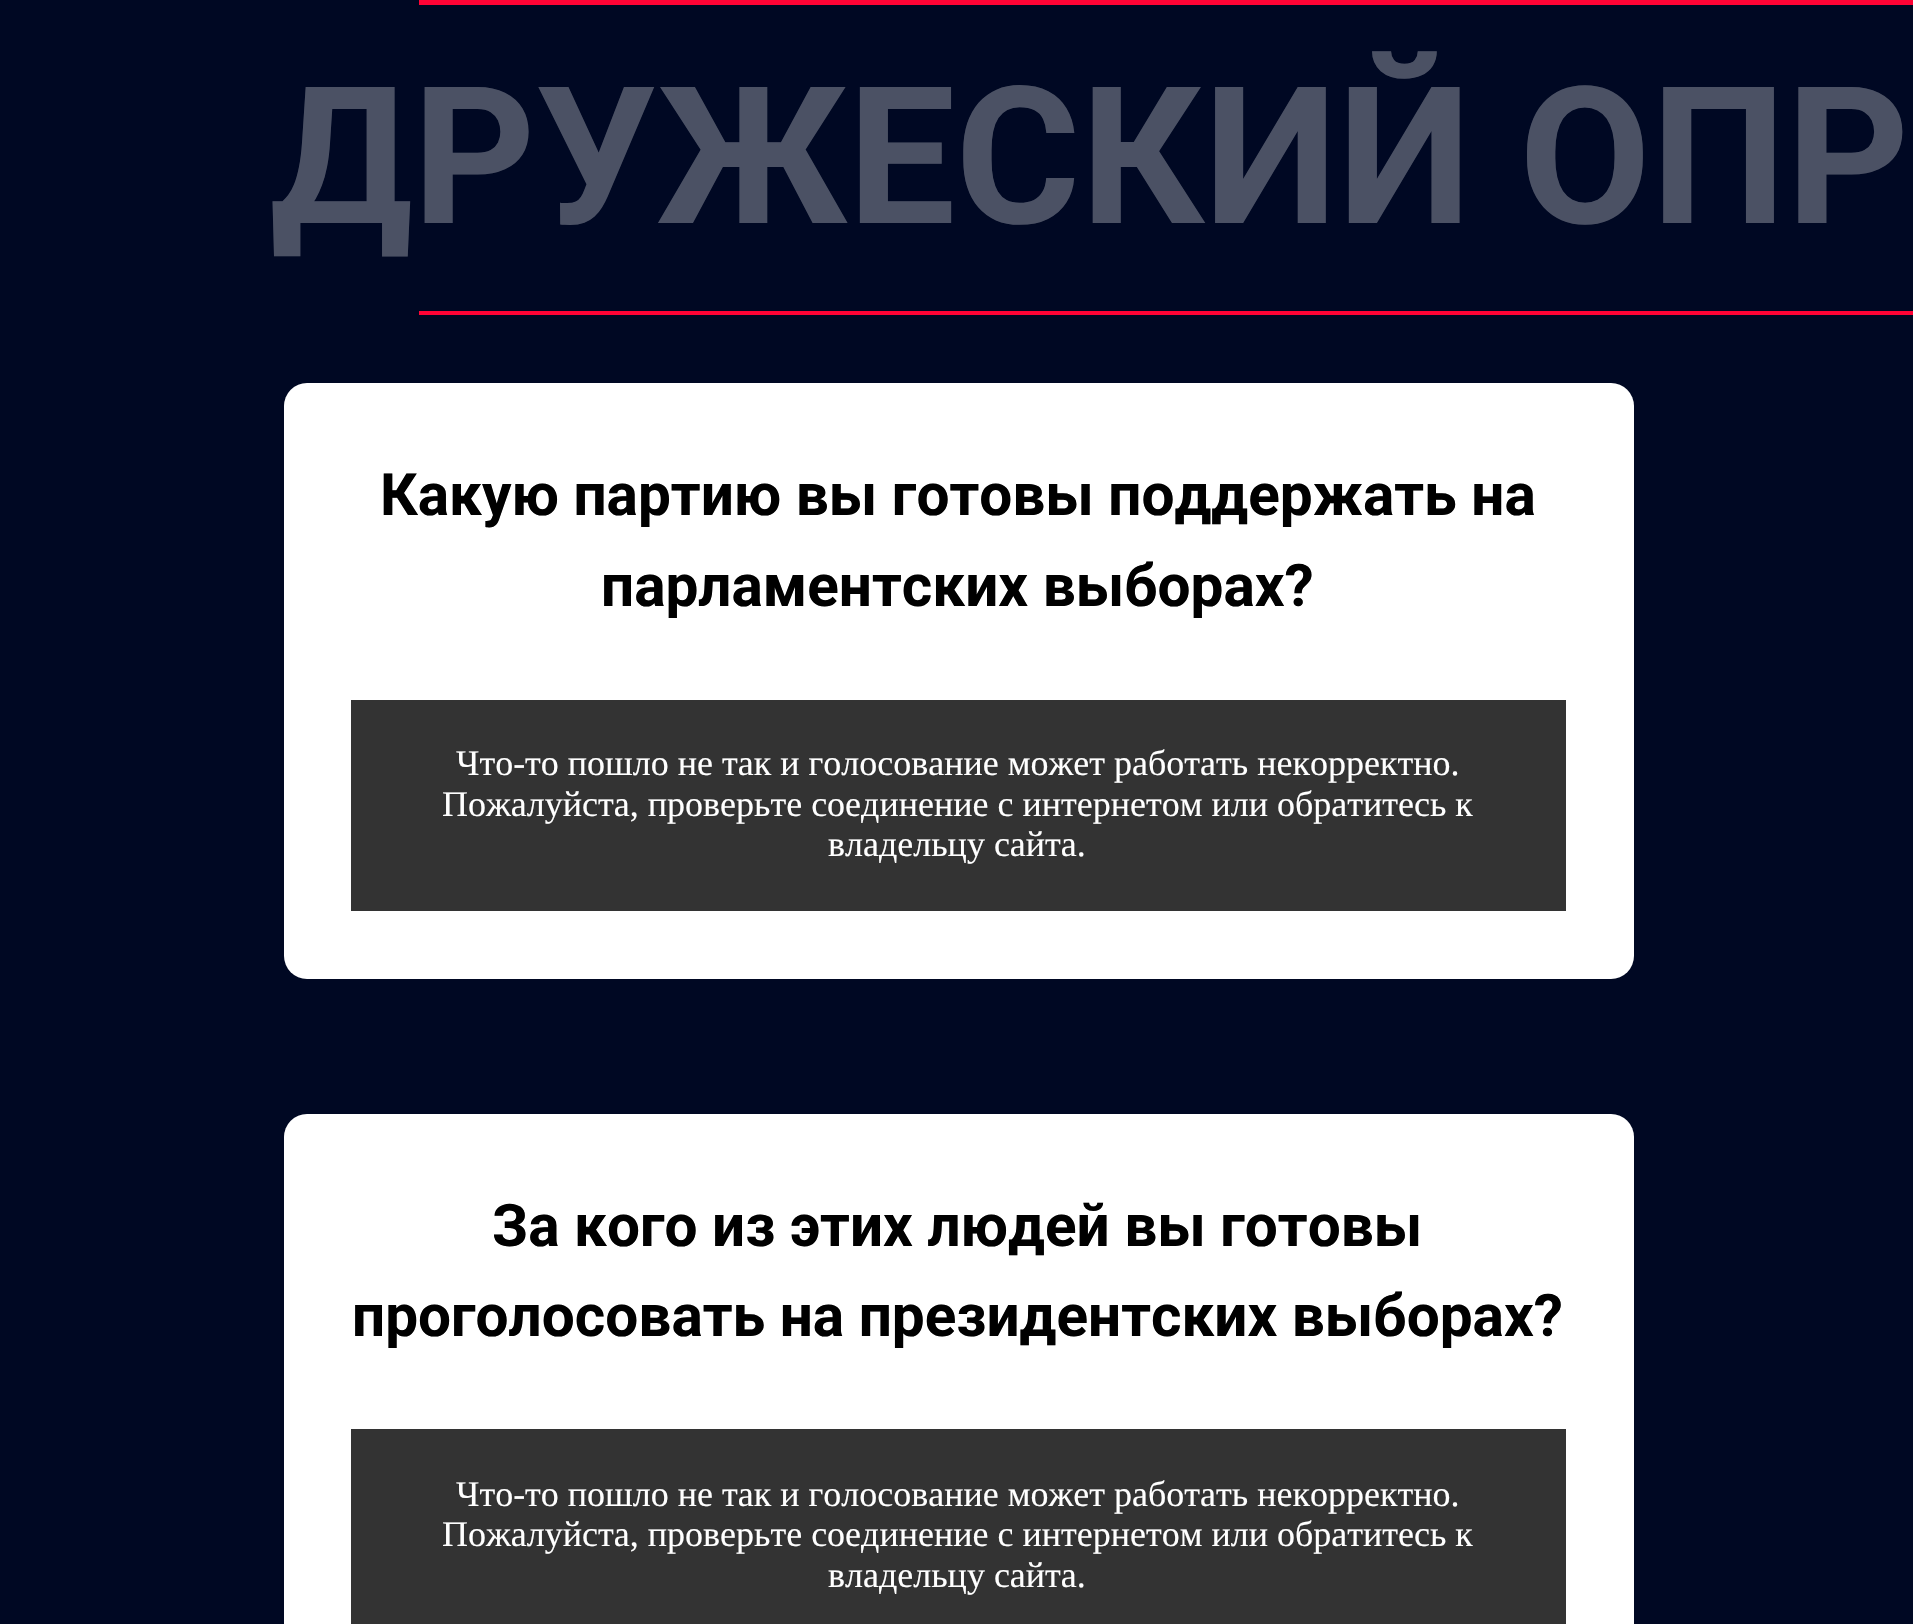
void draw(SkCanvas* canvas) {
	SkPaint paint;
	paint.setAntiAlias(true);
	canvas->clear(0xff000823);
	paint.setColor(0xffff0335);
	canvas->drawRect(SkRect::MakeXYWH(419, 0, 1494, 5), paint);
	SkFont f1(fontMgr->matchFamilyStyle("Roboto", SkFontStyle::Bold()), 191.25);
	f1.setSubpixel(true);
	paint.setColor(0xff4b5164);
	canvas->drawString("ДРУЖЕСКИЙ ОПР", 270, 223, f1, paint);
	paint.setColor(0xffff0335);
	canvas->drawRect(SkRect::MakeXYWH(419, 311, 1494, 4), paint);
	paint.setColor(0xffffffff);
	canvas->drawRoundRect(SkRect::MakeXYWH(284, 383, 1350, 596), 23, 23, paint);
	SkFont f2(fontMgr->matchFamilyStyle("Roboto", SkFontStyle::Bold()), 58.5);
	f2.setSubpixel(true);
	paint.setColor(0xff000000);
	canvas->drawString("Какую партию вы готовы поддержать на", 380, 515, f2, paint);
	canvas->drawString("парламентских выборах?", 601, 606, f2, paint);
	paint.setColor(0xff333333);
	canvas->drawRect(SkRect::MakeXYWH(351, 700, 1215, 211), paint);
	SkFont f3(fontMgr->matchFamilyStyle("Liberation Serif", SkFontStyle::Normal()), 36);
	f3.setSubpixel(true);
	paint.setColor(0xffffffff);
	canvas->drawString("Что-то пошло не так и голосование может работать некорректно.", 456, 775, f3, paint);
	canvas->drawString("Пожалуйста, проверьте соединение с интернетом или обратитесь к", 442, 816, f3, paint);
	canvas->drawString("владельцу сайта.", 828, 856, f3, paint);
	canvas->drawRoundRect(SkRect::MakeXYWH(284, 1114, 1350, 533), 23, 23, paint);
	paint.setColor(0xff000000);
	canvas->drawString("За кого из этих людей вы готовы", 492, 1246, f2, paint);
	canvas->drawString("проголосовать на президентских выборах?", 352, 1336, f2, paint);
	paint.setColor(0xff333333);
	canvas->drawRect(SkRect::MakeXYWH(351, 1429, 1215, 195), paint);
	paint.setColor(0xffffffff);
	canvas->drawString("Что-то пошло не так и голосование может работать некорректно.", 456, 1506, f3, paint);
	canvas->drawString("Пожалуйста, проверьте соединение с интернетом или обратитесь к", 442, 1546, f3, paint);
	canvas->drawString("владельцу сайта.", 828, 1587, f3, paint);
}
